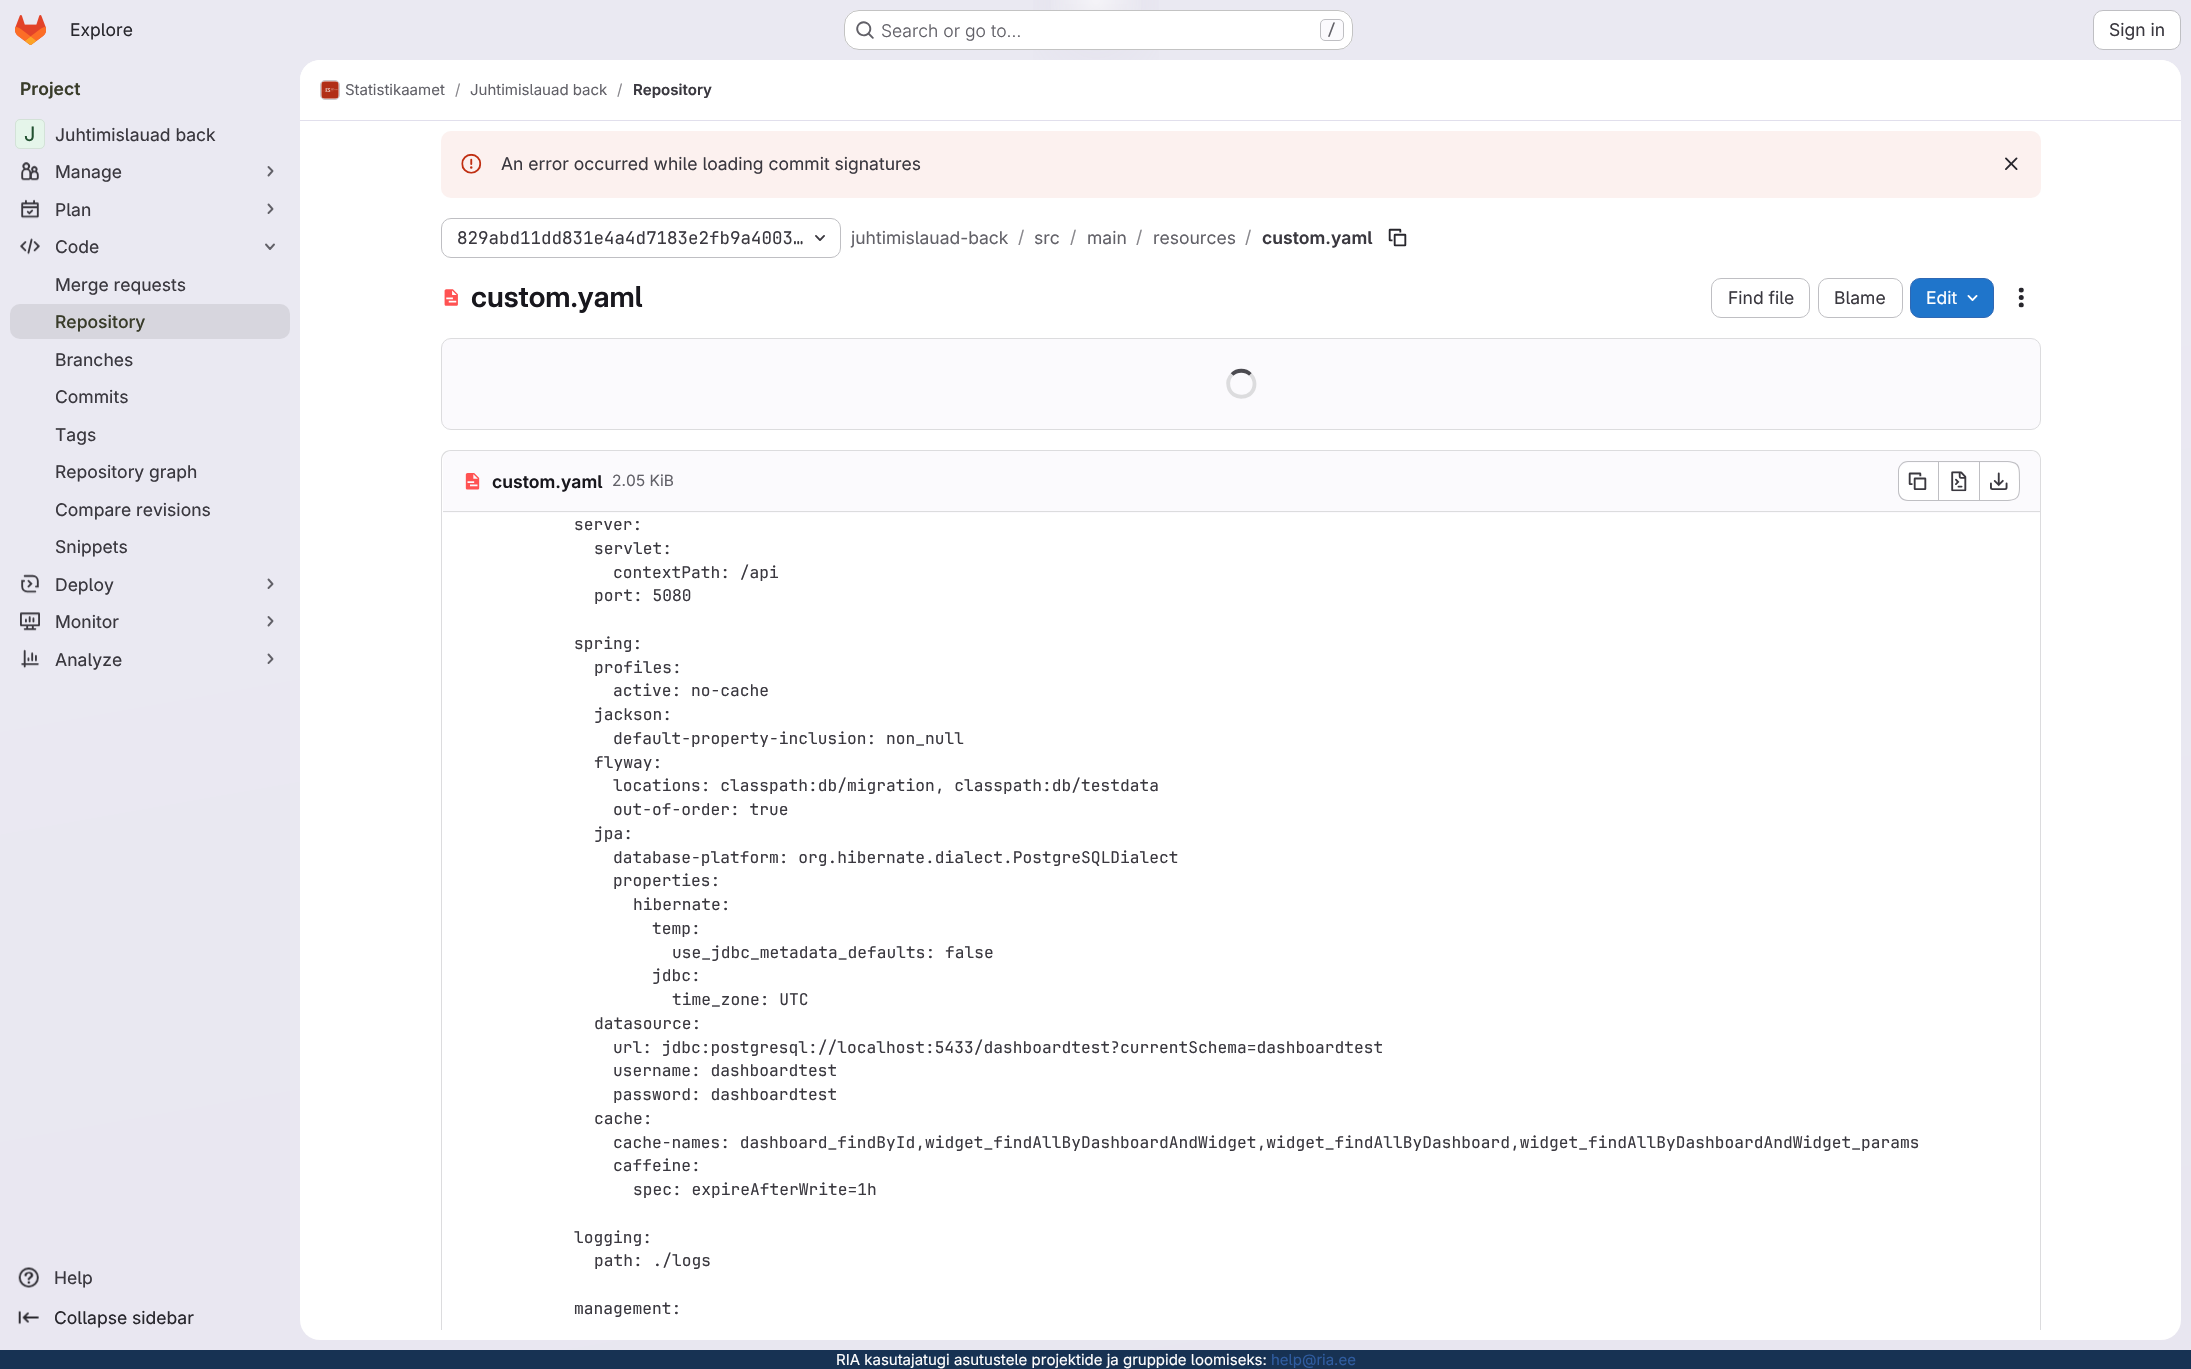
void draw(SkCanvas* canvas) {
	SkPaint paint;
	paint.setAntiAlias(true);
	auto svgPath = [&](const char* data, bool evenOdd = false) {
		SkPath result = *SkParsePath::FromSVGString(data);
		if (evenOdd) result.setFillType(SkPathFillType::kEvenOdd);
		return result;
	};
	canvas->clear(0xffffffff);
	{
		const SkColor colors[] = {0xffe8e6f0, 0xffeae9f2};
		const float stops[] = {0, 0.7};
		const SkPoint ends[] = {{1246, 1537}, {945, -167}};
		paint.setShader(SkGradientShader::MakeLinear(ends, colors, stops, 2, SkTileMode::kClamp));
		paint.setAlpha(255);
	}
	canvas->drawRect(SkRect::MakeXYWH(0, 0, 2191, 1350), paint);
	{
		const SkColor colors[] = {0xffe4e2ed, 0x00e4e2ed};
		const float stops[] = {0, 0.08};
		SkMatrix m = SkMatrix::Translate(1096, 0).preScale(1096, 1370);
		paint.setShader(SkGradientShader::MakeRadial({0, 0}, 1, colors, stops, 2, SkTileMode::kClamp, 0, &m));
		paint.setAlpha(255);
	}
	canvas->drawRect(SkRect::MakeXYWH(1033, 0, 126, 60), paint);
	{
		const SkColor colors[] = {0xffe4e2ec, 0x00e4e2ec};
		const float stops[] = {0, 0.06};
		SkMatrix m = SkMatrix::Translate(1096, 0).preScale(1096, 1370);
		paint.setShader(SkGradientShader::MakeRadial({0, 0}, 1, colors, stops, 2, SkTileMode::kClamp, 0, &m));
		paint.setAlpha(255);
	}
	canvas->drawRect(SkRect::MakeXYWH(1065, 4, 62, 34), paint);
	{
		const SkColor colors[] = {0x99ffffff, 0x00ffffff};
		const float stops[] = {0, 0.03};
		paint.setShader(SkGradientShader::MakeRadial({1096, 0}, 1754, colors, stops, 2, SkTileMode::kClamp));
		paint.setAlpha(255);
	}
	canvas->drawRect(SkRect::MakeXYWH(1051, 0, 90, 10), paint);
	canvas->drawImageRect(SkImages::DeferredFromEncodedData(SkData::MakeFromFileName("img1.png")), SkRect::MakeXYWH(15, 15, 31, 30), SkSamplingOptions());
	SkFont f1(fontMgr->matchFamilyStyle("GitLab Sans", SkFontStyle::Normal()), 17.5);
	f1.setSubpixel(true);
	paint.setShader(nullptr);
	paint.setColor(0xff28272d);
	canvas->drawString("Explore", 70, 36, f1, paint);
	paint.setColor(0xffffffff);
	canvas->drawRoundRect(SkRect::MakeXYWH(844, 10, 509, 40), 15, 15, paint);
	paint.setStroke(true);
	paint.setStrokeWidth(1);
	paint.setColor(0x3d050506);
	canvas->drawRoundRect(SkRect::MakeXYWH(844.5, 10.5, 508, 39), 14.5, 14.5, paint);
	canvas->drawImageRect(SkImages::DeferredFromEncodedData(SkData::MakeFromFileName("img2.png")), SkRect::MakeXYWH(856, 21, 18, 18), SkSamplingOptions());
	SkFont f2(fontMgr->matchFamilyStyle("GitLab Sans", SkFontStyle(300, SkFontStyle::kNormal_Width, SkFontStyle::kUpright_Slant)), 17.5);
	f2.setSubpixel(true);
	paint.setStroke(false);
	paint.setColor(0xff626168);
	canvas->drawString("Search or go to…", 881, 37, f2, paint);
	paint.setColor(0xfffbfafd);
	canvas->drawRoundRect(SkRect::MakeXYWH(1320.5, 19.5, 23, 21), 4.5, 4.5, paint);
	paint.setStroke(true);
	paint.setColor(0xffbfbfc3);
	canvas->drawRoundRect(SkRect::MakeXYWH(1320.5, 19.5, 23, 21), 4.5, 4.5, paint);
	SkFont f3(fontMgr->matchFamilyStyle("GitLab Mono", SkFontStyle(500, SkFontStyle::kNormal_Width, SkFontStyle::kUpright_Slant)), 15);
	f3.setSubpixel(true);
	paint.setStroke(false);
	paint.setColor(0xff626168);
	canvas->drawString("/", 1327, 35, f3, paint);
	paint.setColor(0xffffffff);
	canvas->drawRoundRect(SkRect::MakeXYWH(2093.5, 10.5, 87, 39), 9.5, 9.5, paint);
	paint.setStroke(true);
	paint.setColor(0xffbfbfc3);
	canvas->drawRoundRect(SkRect::MakeXYWH(2093.5, 10.5, 87, 39), 9.5, 9.5, paint);
	paint.setStroke(false);
	paint.setColor(0xff3a383f);
	canvas->drawString("Sign in", 2109, 36, f1, paint);
	SkFont f4(fontMgr->matchFamilyStyle("GitLab Sans", SkFontStyle(600, SkFontStyle::kNormal_Width, SkFontStyle::kUpright_Slant)), 17.5);
	f4.setSubpixel(true);
	paint.setColor(0xff393c2a);
	canvas->drawString("Project", 20, 95, f4, paint);
	paint.setColor(0xffffffff);
	canvas->drawRoundRect(SkRect::MakeXYWH(15, 119, 30, 30), 5, 5, paint);
	paint.setColor(0x3d91d4a8);
	canvas->drawRoundRect(SkRect::MakeXYWH(15, 119, 30, 30), 5, 5, paint);
	paint.setStroke(true);
	paint.setColor(0x14050506);
	canvas->drawRoundRect(SkRect::MakeXYWH(15.5, 119.5, 29, 29), 4.5, 4.5, paint);
	SkFont f5(fontMgr->matchFamilyStyle("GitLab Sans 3", SkFontStyle::Normal()), 20);
	f5.setSubpixel(true);
	paint.setStroke(false);
	paint.setColor(0xff225131);
	canvas->drawString("J", 24, 141, f5, paint);
	SkFont f6(fontMgr->matchFamilyStyle("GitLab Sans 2", SkFontStyle::Normal()), 17.5);
	f6.setSubpixel(true);
	paint.setColor(0xff3a383f);
	canvas->drawString("Juhtimislauad back", 55, 141, f6, paint);
	canvas->drawImageRect(SkImages::DeferredFromEncodedData(SkData::MakeFromFileName("img3.png")), SkRect::MakeXYWH(21, 162, 18, 19), SkSamplingOptions());
	canvas->drawString("Manage", 55, 178, f6, paint);
	paint.setStroke(true);
	paint.setStrokeWidth(1.9);
	paint.setStrokeCap(SkPaint::kRound_Cap);
	paint.setStrokeJoin(SkPaint::kRound_Join);
	paint.setColor(0xff626168);
	canvas->drawPath(svgPath("M268.5 167L272.5 171L268.5 175.5"), paint);
	canvas->drawImageRect(SkImages::DeferredFromEncodedData(SkData::MakeFromFileName("img4.png")), SkRect::MakeXYWH(21, 199, 18, 20), SkSamplingOptions());
	paint.setStroke(false);
	paint.setColor(0xff3a383f);
	canvas->drawString("Plan", 55, 216, f6, paint);
	paint.setStroke(true);
	paint.setColor(0xff626168);
	canvas->drawPath(svgPath("M268.5 204.5L272.5 209L268.5 213"), paint);
	canvas->drawImageRect(SkImages::DeferredFromEncodedData(SkData::MakeFromFileName("img5.png")), SkRect::MakeXYWH(20, 238, 20, 17), SkSamplingOptions());
	paint.setStroke(false);
	paint.setColor(0xff3a383f);
	canvas->drawString("Code", 55, 253, f6, paint);
	paint.setStroke(true);
	paint.setColor(0xff626168);
	canvas->drawPath(svgPath("M274 244.5L270 249L266 244.5"), paint);
	paint.setStroke(false);
	paint.setColor(0xff3a383f);
	canvas->drawString("Merge requests", 55, 291, f6, paint);
	paint.setColor(0xffd7d6de);
	canvas->drawRoundRect(SkRect::MakeXYWH(10, 304, 280, 35), 10, 10, paint);
	SkFont f7(fontMgr->matchFamilyStyle("GitLab Sans", SkFontStyle(500, SkFontStyle::kNormal_Width, SkFontStyle::kUpright_Slant)), 17.5);
	f7.setSubpixel(true);
	paint.setColor(0xff393c2a);
	canvas->drawString("Repository", 55, 328, f7, paint);
	paint.setColor(0xff3a383f);
	canvas->drawString("Branches", 55, 366, f6, paint);
	canvas->drawString("Commits", 55, 403, f6, paint);
	canvas->drawString("Tags", 55, 441, f6, paint);
	canvas->drawString("Repository graph", 55, 478, f6, paint);
	canvas->drawString("Compare revisions", 55, 516, f6, paint);
	canvas->drawString("Snippets", 55, 553, f6, paint);
	canvas->drawImageRect(SkImages::DeferredFromEncodedData(SkData::MakeFromFileName("img6.png")), SkRect::MakeXYWH(21, 574, 18, 20), SkSamplingOptions());
	canvas->drawString("Deploy", 55, 591, f6, paint);
	paint.setStroke(true);
	paint.setColor(0xff626168);
	canvas->drawPath(svgPath("M268.5 579.5L272.5 584L268.5 588"), paint);
	canvas->drawImageRect(SkImages::DeferredFromEncodedData(SkData::MakeFromFileName("img7.png")), SkRect::MakeXYWH(20, 612, 20, 19), SkSamplingOptions());
	paint.setStroke(false);
	paint.setColor(0xff3a383f);
	canvas->drawString("Monitor", 55, 628, f6, paint);
	paint.setStroke(true);
	paint.setColor(0xff626168);
	canvas->drawPath(svgPath("M268.5 617L272.5 621L268.5 625.5"), paint);
	canvas->drawImageRect(SkImages::DeferredFromEncodedData(SkData::MakeFromFileName("img8.png")), SkRect::MakeXYWH(21, 649, 18, 20), SkSamplingOptions());
	paint.setStroke(false);
	paint.setColor(0xff3a383f);
	canvas->drawString("Analyze", 55, 666, f6, paint);
	paint.setStroke(true);
	paint.setColor(0xff626168);
	canvas->drawPath(svgPath("M268.5 654.5L272.5 659L268.5 663"), paint);
	canvas->drawImageRect(SkImages::DeferredFromEncodedData(SkData::MakeFromFileName("img9.png")), SkRect::MakeXYWH(18, 1267, 21, 21), SkSamplingOptions());
	paint.setStroke(false);
	paint.setColor(0xff3a383f);
	canvas->drawString("Help", 54, 1284, f6, paint);
	canvas->drawImageRect(SkImages::DeferredFromEncodedData(SkData::MakeFromFileName("img10.png")), SkRect::MakeXYWH(18, 1310, 21, 15), SkSamplingOptions());
	paint.setColor(0xff28272d);
	canvas->drawString("Collapse sidebar", 54, 1324, f6, paint);
	paint.setColor(0xffffffff);
	canvas->drawRoundRect(SkRect::MakeXYWH(300, 60, 1881, 1280), 20, 20, paint);
	canvas->drawPath(svgPath("M320 60H2161C2172 60 2181 69 2181 80V121H300V80C300 69 309 60 320 60Z"), paint);
	paint.setColor(0xffe1dfec);
	canvas->drawRect(SkRect::MakeXYWH(300, 120, 1881, 1), paint);
	paint.setStroke(true);
	paint.setStrokeWidth(1);
	paint.setStrokeCap(SkPaint::kButt_Cap);
	paint.setStrokeJoin(SkPaint::kMiter_Join);
	paint.setColor(0xffdcdcde);
	canvas->drawRoundRect(SkRect::MakeXYWH(320.5, 80.5, 19, 19), 4.5, 4.5, paint);
	canvas->drawImageRect(SkImages::DeferredFromEncodedData(SkData::MakeFromFileName("img11.png")), SkRect::MakeXYWH(321, 81, 18, 18), SkSamplingOptions());
	paint.setColor(0x14050506);
	canvas->drawRoundRect(SkRect::MakeXYWH(320.5, 80.5, 19, 19), 4.5, 4.5, paint);
	SkFont f8(fontMgr->matchFamilyStyle("GitLab Sans", SkFontStyle::Normal()), 15);
	f8.setSubpixel(true);
	paint.setStroke(false);
	paint.setColor(0xff626168);
	canvas->drawString("Statistikaamet", 345, 95, f8, paint);
	paint.setColor(0xff89888d);
	canvas->drawString("/", 455, 95, f8, paint);
	paint.setColor(0xff626168);
	canvas->drawString("Juhtimislauad back", 470, 95, f8, paint);
	paint.setColor(0xff89888d);
	canvas->drawString("/", 617, 95, f8, paint);
	SkFont f9(fontMgr->matchFamilyStyle("GitLab Sans", SkFontStyle(600, SkFontStyle::kNormal_Width, SkFontStyle::kUpright_Slant)), 15);
	f9.setSubpixel(true);
	paint.setColor(0xff3a383f);
	canvas->drawString("Repository", 633, 95, f9, paint);
	paint.setColor(0xfffcf1ef);
	canvas->drawRoundRect(SkRect::MakeXYWH(441, 131, 1600, 67), 10, 10, paint);
	canvas->drawImageRect(SkImages::DeferredFromEncodedData(SkData::MakeFromFileName("img12.png")), SkRect::MakeXYWH(461, 153, 21, 21), SkSamplingOptions());
	paint.setColor(0xff3a383f);
	canvas->drawString("An error occurred while loading commit signatures", 501, 170, f1, paint);
	canvas->drawImageRect(SkImages::DeferredFromEncodedData(SkData::MakeFromFileName("img13.png")), SkRect::MakeXYWH(2005, 157, 13, 13), SkSamplingOptions());
	paint.setStroke(true);
	paint.setColor(0xffbfbfc3);
	canvas->drawRoundRect(SkRect::MakeXYWH(441.5, 218.5, 399, 39), 9.5, 9.5, paint);
	SkFont f10(fontMgr->matchFamilyStyle("GitLab Mono", SkFontStyle::Normal()), 17.5);
	f10.setSubpixel(true);
	paint.setStroke(false);
	paint.setColor(0xff3a383f);
	canvas->drawString("829abd11dd831e4a4d7183e2fb9a4003…", 457, 244, f10, paint);
	canvas->drawImageRect(SkImages::DeferredFromEncodedData(SkData::MakeFromFileName("img14.png")), SkRect::MakeXYWH(815, 235, 10, 6), SkSamplingOptions());
	paint.setColor(0xff626168);
	canvas->drawString("juhtimislauad-back", 851, 244, f1, paint);
	paint.setColor(0xff89888d);
	canvas->drawString("/", 1018, 243, f1, paint);
	paint.setColor(0xff626168);
	canvas->drawString("src", 1034, 244, f1, paint);
	paint.setColor(0xff89888d);
	canvas->drawString("/", 1070, 243, f1, paint);
	paint.setColor(0xff626168);
	canvas->drawString("main", 1087, 244, f1, paint);
	paint.setColor(0xff89888d);
	canvas->drawString("/", 1136, 243, f1, paint);
	paint.setColor(0xff626168);
	canvas->drawString("resources", 1153, 244, f1, paint);
	paint.setColor(0xff89888d);
	canvas->drawString("/", 1245, 243, f1, paint);
	paint.setColor(0xff3a383f);
	canvas->drawString("custom.yaml", 1262, 244, f4, paint);
	canvas->drawImageRect(SkImages::DeferredFromEncodedData(SkData::MakeFromFileName("img15.png")), SkRect::MakeXYWH(1388, 228, 19, 19), SkSamplingOptions());
	canvas->drawImageRect(SkImages::DeferredFromEncodedData(SkData::MakeFromFileName("img16.png")), SkRect::MakeXYWH(444, 289, 14, 17), SkSamplingOptions());
	SkFont f11(fontMgr->matchFamilyStyle("GitLab Sans 2", SkFontStyle(600, SkFontStyle::kNormal_Width, SkFontStyle::kUpright_Slant)), 28.75);
	f11.setSubpixel(true);
	paint.setColor(0xff18171d);
	canvas->drawString("custom.yaml", 471, 307, f11, paint);
	paint.setStroke(true);
	paint.setColor(0xffbfbfc3);
	canvas->drawRoundRect(SkRect::MakeXYWH(1711.5, 278.5, 98, 39), 9.5, 9.5, paint);
	paint.setStroke(false);
	paint.setColor(0xff3a383f);
	canvas->drawString("Find file", 1728, 304, f1, paint);
	paint.setStroke(true);
	paint.setColor(0xffbfbfc3);
	canvas->drawRoundRect(SkRect::MakeXYWH(1818.5, 278.5, 84, 39), 9.5, 9.5, paint);
	paint.setStroke(false);
	paint.setColor(0xff3a383f);
	canvas->drawString("Blame", 1834, 304, f1, paint);
	paint.setColor(0xff1f75cb);
	canvas->drawRoundRect(SkRect::MakeXYWH(1910.5, 278.5, 83, 39), 9.5, 9.5, paint);
	paint.setStroke(true);
	paint.setColor(0xff2f68b4);
	canvas->drawRoundRect(SkRect::MakeXYWH(1910.5, 278.5, 83, 39), 9.5, 9.5, paint);
	paint.setStroke(false);
	paint.setColor(0xffffffff);
	canvas->drawString("Edit", 1926, 304, f1, paint);
	canvas->drawImageRect(SkImages::DeferredFromEncodedData(SkData::MakeFromFileName("img17.png")), SkRect::MakeXYWH(1967, 295, 11, 6), SkSamplingOptions());
	canvas->drawImageRect(SkImages::DeferredFromEncodedData(SkData::MakeFromFileName("img18.png")), SkRect::MakeXYWH(2018, 287, 6, 21), SkSamplingOptions());
	paint.setColor(0xfffbfafd);
	canvas->drawRoundRect(SkRect::MakeXYWH(441.5, 338.5, 1599, 91), 9.5, 9.5, paint);
	paint.setStroke(true);
	paint.setColor(0xffdcdcde);
	canvas->drawRoundRect(SkRect::MakeXYWH(441.5, 338.5, 1599, 91), 9.5, 9.5, paint);
	paint.setStrokeWidth(3.8);
	paint.setColor(0xff4c4b51);
	canvas->drawPath(svgPath("M1232 374.5C1237 369.5 1245.5 369.5 1250.5 374.5"), paint);
	paint.setColor(0xffdcdcde);
	canvas->drawPath(svgPath("M1250.5 374.5C1253 377 1254.5 380.5 1254.5 384C1254.5 399.5 1231.5 401.5 1228.5 386.5C1227.5 382 1229 377.5 1232 374.5"), paint);
	canvas->save();
	canvas->clipRect(SkRect::MakeXYWH(300, 121, 1881, 1209));
	paint.setStroke(false);
	canvas->drawPath(svgPath("M451 450C445 450 441 454 441 460V1340H442V460C442 455 446 451 451 451H2031C2036 451 2040 455 2040 460V1340H2041V460C2041 454 2037 450 2031 450Z"), paint);
	canvas->restore();
	paint.setColor(0xfffbfafd);
	canvas->drawPath(svgPath("M452 451H2031C2036 451 2040 455 2040 460V513H443V460C443 455 447 451 452 451Z"), paint);
	paint.setColor(0xffdcdcde);
	canvas->drawRect(SkRect::MakeXYWH(443, 511, 1597, 1), paint);
	canvas->drawImageRect(SkImages::DeferredFromEncodedData(SkData::MakeFromFileName("img19.png")), SkRect::MakeXYWH(465, 473, 15, 17), SkSamplingOptions());
	paint.setColor(0xff18171d);
	canvas->drawString("custom.yaml", 492, 488, f4, paint);
	SkFont f12(fontMgr->matchFamilyStyle("GitLab Sans", SkFontStyle::Normal()), 15.5);
	f12.setSubpixel(true);
	paint.setColor(0xff626168);
	canvas->drawString("2.05 KiB", 612, 486, f12, paint);
	paint.setColor(0xffffffff);
	canvas->drawPath(svgPath("M1908 463H1938V500H1908C1903 500 1899 496 1899 491V472C1899 467 1903 463 1908 463Z"), paint);
	paint.setColor(0xffbfbfc3);
	canvas->drawPath(svgPath("M1908 461H1938V501H1908C1902 501 1898 497 1898 491V471C1898 466 1902 461 1908 461ZM1908 462H1938V500H1908C1903 500 1899 496 1899 491V471C1899 466 1903 462 1908 462Z", true), paint);
	canvas->drawImageRect(SkImages::DeferredFromEncodedData(SkData::MakeFromFileName("img20.png")), SkRect::MakeXYWH(1908, 472, 19, 18), SkSamplingOptions());
	paint.setColor(0xffffffff);
	canvas->drawRect(SkRect::MakeXYWH(1939, 463, 40, 37), paint);
	paint.setColor(0xffbfbfc3);
	canvas->drawRect(SkRect::MakeXYWH(1939, 461, 40, 1), paint);
	canvas->drawRect(SkRect::MakeXYWH(1939, 500, 40, 1), paint);
	canvas->drawRect(SkRect::MakeXYWH(1938, 461, 1, 40), paint);
	canvas->drawImageRect(SkImages::DeferredFromEncodedData(SkData::MakeFromFileName("img21.png")), SkRect::MakeXYWH(1951, 471, 16, 21), SkSamplingOptions());
	paint.setColor(0xffffffff);
	canvas->drawPath(svgPath("M1980 463H2010C2015 463 2019 467 2019 472V491C2019 496 2015 500 2010 500H1980Z"), paint);
	paint.setColor(0xffbfbfc3);
	canvas->drawPath(svgPath("M1980 461H2005C2021 461 2020 467 2020 481C2020 495 2021 501 2005 501H1980ZM1980 462H2005C2020 462 2019 468 2019 481C2019 495 2020 500 2005 500H1980Z", true), paint);
	canvas->drawRect(SkRect::MakeXYWH(1979, 461, 1, 40), paint);
	canvas->drawImageRect(SkImages::DeferredFromEncodedData(SkData::MakeFromFileName("img22.png")), SkRect::MakeXYWH(1990, 472, 18, 18), SkSamplingOptions());
	SkFont f13(fontMgr->matchFamilyStyle("GitLab Mono", SkFontStyle::Normal()), 16.25);
	f13.setSubpixel(true);
	paint.setColor(0xff3a383f);
	canvas->drawString("server:", 574, 530, f13, paint);
	canvas->drawString("servlet:", 594, 554, f13, paint);
	canvas->drawString("contextPath: /api", 613, 578, f13, paint);
	canvas->drawString("port: 5080", 594, 601, f13, paint);
	canvas->drawString("spring:", 574, 649, f13, paint);
	canvas->drawString("profiles:", 594, 673, f13, paint);
	canvas->drawString("active: no-cache", 613, 696, f13, paint);
	canvas->drawString("jackson:", 594, 720, f13, paint);
	canvas->drawString("default-property-inclusion: non_null", 613, 744, f13, paint);
	canvas->drawString("flyway:", 594, 768, f13, paint);
	canvas->drawString("locations: classpath:db/migration, classpath:db/testdata", 613, 791, f13, paint);
	canvas->drawString("out-of-order: true", 613, 815, f13, paint);
	canvas->drawString("jpa:", 594, 839, f13, paint);
	canvas->drawString("database-platform: org.hibernate.dialect.PostgreSQLDialect", 613, 863, f13, paint);
	canvas->drawString("properties:", 613, 886, f13, paint);
	canvas->drawString("hibernate:", 633, 910, f13, paint);
	canvas->drawString("temp:", 652, 934, f13, paint);
	canvas->drawString("use_jdbc_metadata_defaults: false", 672, 958, f13, paint);
	canvas->drawString("jdbc:", 652, 981, f13, paint);
	canvas->drawString("time_zone: UTC", 672, 1005, f13, paint);
	canvas->drawString("datasource:", 594, 1029, f13, paint);
	canvas->drawString("url: jdbc:postgresql://localhost:5433/dashboardtest?currentSchema=dashboardtest", 613, 1053, f13, paint);
	canvas->drawString("username: dashboardtest", 613, 1076, f13, paint);
	canvas->drawString("password: dashboardtest", 613, 1100, f13, paint);
	canvas->drawString("cache:", 594, 1124, f13, paint);
	canvas->drawString("cache-names: dashboard_findById,widget_findAllByDashboardAndWidget,widget_findAllByDashboard,widget_findAllByDashboardAndWidget_params", 613, 1148, f13, paint);
	canvas->drawString("caffeine:", 613, 1171, f13, paint);
	canvas->drawString("spec: expireAfterWrite=1h", 633, 1195, f13, paint);
	canvas->drawString("logging:", 574, 1243, f13, paint);
	canvas->drawString("path: ./logs", 594, 1266, f13, paint);
	canvas->drawString("management:", 574, 1314, f13, paint);
	paint.setColor(0xff173253);
	canvas->drawRect(SkRect::MakeXYWH(0, 1350, 2191, 19), paint);
	paint.setColor(0xffffffff);
	canvas->drawString("RIA kasutajatugi asutustele projektide ja gruppide loomiseks:", 836, 1365, f8, paint);
	paint.setColor(0xff2f5ca0);
	canvas->drawString("help@ria.ee", 1271, 1365, f8, paint);
}
